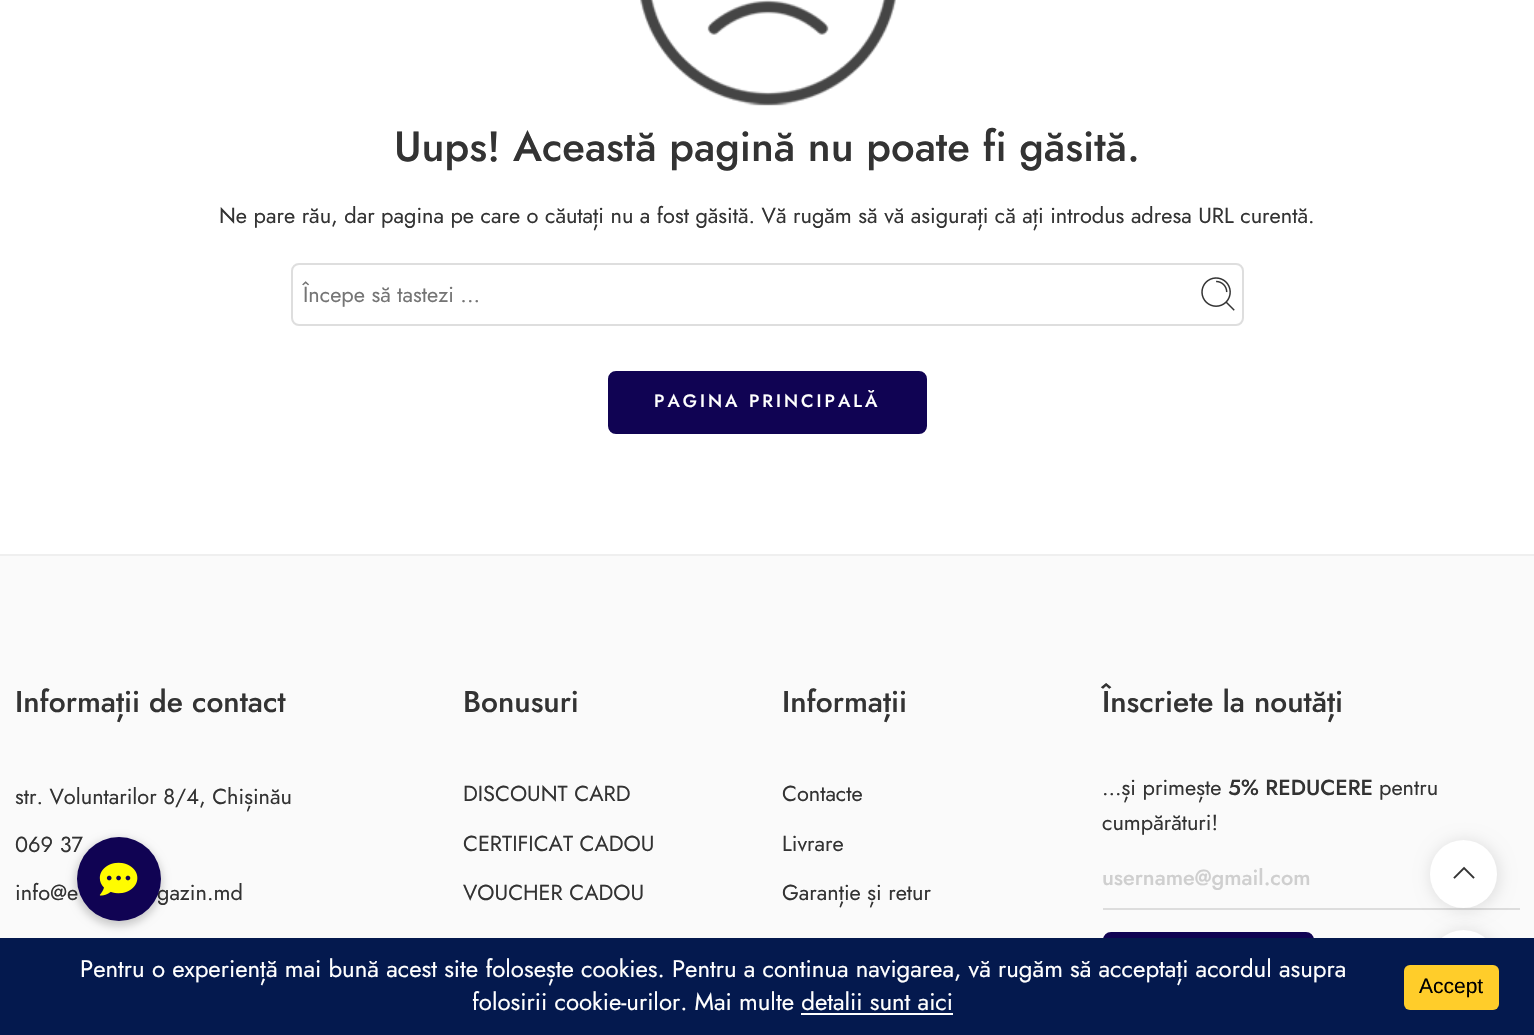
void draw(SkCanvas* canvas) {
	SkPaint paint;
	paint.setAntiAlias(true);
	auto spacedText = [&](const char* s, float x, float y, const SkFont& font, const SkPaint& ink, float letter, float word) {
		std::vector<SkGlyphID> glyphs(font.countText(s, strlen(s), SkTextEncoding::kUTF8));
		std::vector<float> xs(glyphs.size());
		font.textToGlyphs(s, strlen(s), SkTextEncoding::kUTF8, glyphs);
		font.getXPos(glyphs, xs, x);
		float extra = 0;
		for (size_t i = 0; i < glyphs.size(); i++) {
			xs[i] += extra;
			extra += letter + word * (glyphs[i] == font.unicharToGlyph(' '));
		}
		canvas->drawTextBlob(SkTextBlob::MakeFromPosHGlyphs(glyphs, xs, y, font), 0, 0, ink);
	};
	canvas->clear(0xffffffff);
	canvas->drawImageRect(SkImages::DeferredFromEncodedData(SkData::MakeFromFileName("img1.png")), SkRect::MakeXYWH(640, 0, 256, 106), SkSamplingOptions());
	SkFont f1(fontMgr->matchFamilyStyle("Jost", SkFontStyle(500, SkFontStyle::kNormal_Width, SkFontStyle::kUpright_Slant)), 42);
	f1.setSubpixel(true);
	paint.setColor(0xff333333);
	canvas->drawString("Uups! Această pagină nu poate fi găsită.", 394, 161, f1, paint);
	SkFont f2(fontMgr->matchFamilyStyle("Jost", SkFontStyle::Normal()), 21.75);
	f2.setSubpixel(true);
	canvas->drawString("Ne pare rău, dar pagina pe care o căutați nu a fost găsită. Vă rugăm să vă asigurați că ați introdus adresa URL curentă.", 219, 223, f2, paint);
	paint.setStroke(true);
	paint.setStrokeWidth(2);
	paint.setColor(0xffdedede);
	canvas->drawRoundRect(SkRect::MakeXYWH(292, 264, 951, 61), 7, 7, paint);
	paint.setStroke(false);
	paint.setColor(0xff757575);
	canvas->drawString("Începe să tastezi ...", 303, 302, f2, paint);
	canvas->drawImageRect(SkImages::DeferredFromEncodedData(SkData::MakeFromFileName("img2.png")), SkRect::MakeXYWH(1201, 277, 34, 34), SkSamplingOptions());
	paint.setColor(0xff100353);
	canvas->drawRoundRect(SkRect::MakeXYWH(609, 372, 317, 61), 7, 7, paint);
	paint.setStroke(true);
	canvas->drawRoundRect(SkRect::MakeXYWH(609, 372, 317, 61), 7, 7, paint);
	SkFont f3(fontMgr->matchFamilyStyle("Jost", SkFontStyle(500, SkFontStyle::kNormal_Width, SkFontStyle::kUpright_Slant)), 18);
	f3.setSubpixel(true);
	paint.setStroke(false);
	paint.setColor(0xffffffff);
	spacedText("PAGINA PRINCIPALĂ", 654, 407, f3, paint, 3, 0);
	paint.setColor(0xfffafafa);
	canvas->drawRect(SkRect::MakeXYWH(0, 556, 1534, 382), paint);
	paint.setColor(0xffefefef);
	canvas->drawRect(SkRect::MakeXYWH(0, 554, 1534, 2), paint);
	SkFont f4(fontMgr->matchFamilyStyle("Jost", SkFontStyle(500, SkFontStyle::kNormal_Width, SkFontStyle::kUpright_Slant)), 30);
	f4.setSubpixel(true);
	paint.setColor(0xff333333);
	canvas->drawString("Informații de contact", 15, 712, f4, paint);
	canvas->drawString("str. Voluntarilor 8/4, Chișinău", 15, 804, f2, paint);
	canvas->drawString("069 37", 15, 852, f2, paint);
	canvas->drawString("info@e", 15, 900, f2, paint);
	canvas->drawString("gazin.md", 157, 900, f2, paint);
	canvas->drawString("Bonusuri", 463, 712, f4, paint);
	canvas->drawString("DISCOUNT CARD", 463, 801, f2, paint);
	canvas->drawString("CERTIFICAT CADOU", 463, 851, f2, paint);
	canvas->drawString("VOUCHER CADOU", 463, 900, f2, paint);
	canvas->drawString("Informații", 782, 712, f4, paint);
	canvas->drawString("Contacte", 782, 801, f2, paint);
	canvas->drawString("Livrare", 782, 851, f2, paint);
	canvas->drawString("Garanție și retur", 782, 900, f2, paint);
	canvas->drawString("Înscriete la noutăți", 1102, 712, f4, paint);
	canvas->drawString("...și primește", 1102, 795, f2, paint);
	SkFont f5(fontMgr->matchFamilyStyle("Jost", SkFontStyle(500, SkFontStyle::kNormal_Width, SkFontStyle::kUpright_Slant)), 21.75);
	f5.setSubpixel(true);
	canvas->drawString("5% REDUCERE", 1228, 795, f5, paint);
	canvas->drawString("pentru", 1379, 795, f2, paint);
	canvas->drawString("cumpărături!", 1102, 830, f2, paint);
	paint.setColor(0xffdddddd);
	canvas->drawRect(SkRect::MakeXYWH(1103, 908, 417, 2), paint);
	paint.setColor(0xffcfcfcf);
	canvas->drawString("username@gmail.com", 1102, 885, f5, paint);
	paint.setColor(0xff100353);
	canvas->drawRoundRect(SkRect::MakeXYWH(1104, 933, 209, 61), 7, 7, paint);
	paint.setStroke(true);
	canvas->drawRoundRect(SkRect::MakeXYWH(1104, 933, 209, 61), 7, 7, paint);
	paint.setStroke(false);
	paint.setColor(0x1a000000);
	paint.setMaskFilter(SkMaskFilter::MakeBlur(kNormal_SkBlurStyle, 7.5));
	canvas->drawRoundRect(SkRect::MakeXYWH(1430, 840, 70, 71), 35, 35, paint);
	paint.setMaskFilter(nullptr);
	paint.setColor(0xffffffff);
	canvas->drawRoundRect(SkRect::MakeXYWH(1430, 840, 67, 68), 33.5, 33.5, paint);
	canvas->drawImageRect(SkImages::DeferredFromEncodedData(SkData::MakeFromFileName("img3.png")), SkRect::MakeXYWH(1453, 866, 22, 13), SkSamplingOptions());
	paint.setColor(0x1a000000);
	paint.setMaskFilter(SkMaskFilter::MakeBlur(kNormal_SkBlurStyle, 7.5));
	canvas->drawRoundRect(SkRect::MakeXYWH(1430, 930, 70, 71), 35, 35, paint);
	paint.setMaskFilter(nullptr);
	paint.setColor(0xffffffff);
	canvas->drawRoundRect(SkRect::MakeXYWH(1430, 930, 67, 68), 33.5, 33.5, paint);
	paint.setColor(0x33000000);
	paint.setMaskFilter(SkMaskFilter::MakeBlur(kNormal_SkBlurStyle, 4.5));
	canvas->drawRoundRect(SkRect::MakeXYWH(75, 839, 87, 87), 43.5, 43.5, paint);
	paint.setMaskFilter(nullptr);
	paint.setColor(0xff100353);
	canvas->drawCircle(119, 879, 42, paint);
	canvas->drawImageRect(SkImages::DeferredFromEncodedData(SkData::MakeFromFileName("img4.png")), SkRect::MakeXYWH(99, 862, 39, 34), SkSamplingOptions());
	paint.setColor(0xff04194e);
	canvas->drawRect(SkRect::MakeXYWH(0, 938, 1534, 97), paint);
	SkFont f6(fontMgr->matchFamilyStyle("Jost", SkFontStyle::Normal()), 24);
	f6.setSubpixel(true);
	paint.setColor(0xffffffff);
	canvas->drawString("Pentru o experiență mai bună acest site folosește cookies. Pentru a continua navigarea, vă rugăm să acceptați acordul asupra", 80, 977, f6, paint);
	canvas->drawString("folosirii cookie-urilor. Mai multe detalii sunt aici", 472, 1010, f6, paint);
	canvas->drawRect(SkRect::MakeXYWH(801, 1013, 152, 2), paint);
	paint.setColor(0xffffcd2a);
	canvas->drawRoundRect(SkRect::MakeXYWH(1404, 965, 95, 45), 6, 6, paint);
	SkFont f7(fontMgr->matchFamilyStyle("Liberation Sans", SkFontStyle::Normal()), 21);
	f7.setSubpixel(true);
	paint.setColor(0xff000000);
	canvas->drawString("Accept", 1419, 993, f7, paint);
}
